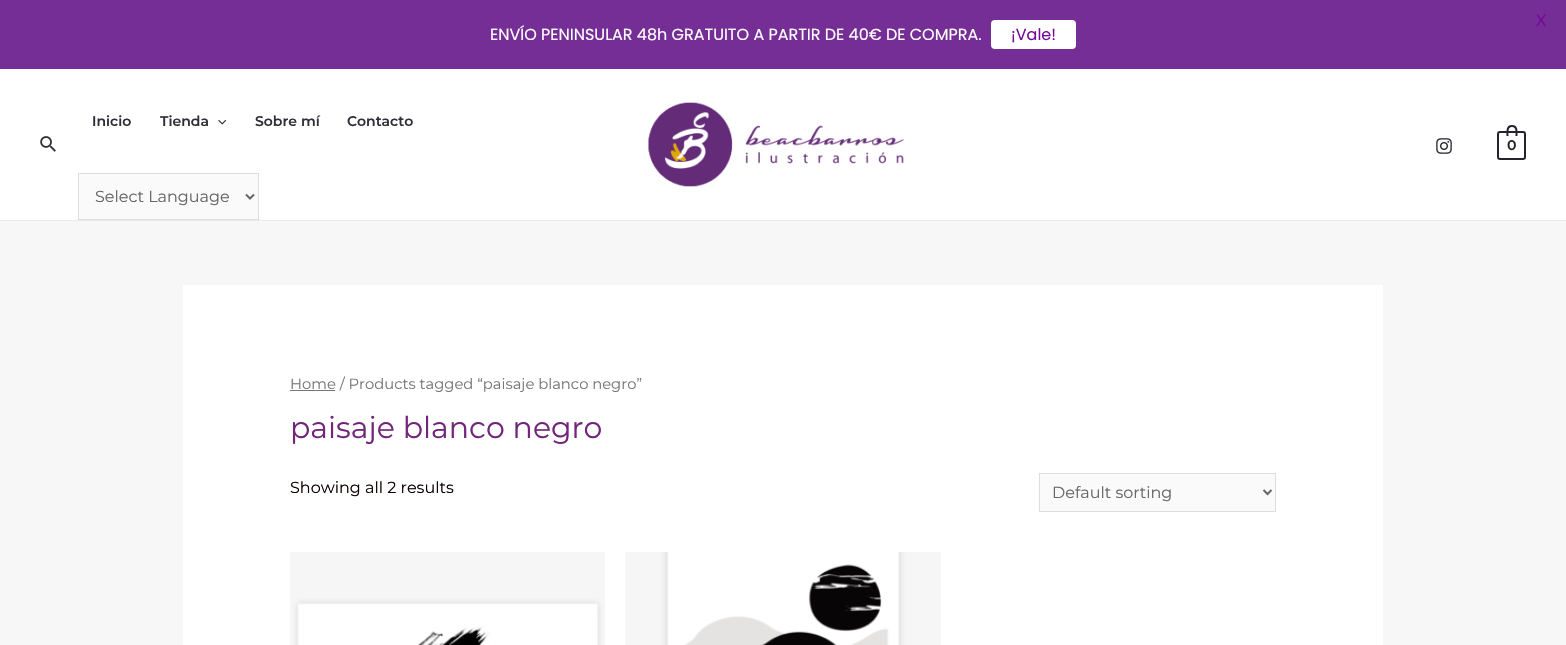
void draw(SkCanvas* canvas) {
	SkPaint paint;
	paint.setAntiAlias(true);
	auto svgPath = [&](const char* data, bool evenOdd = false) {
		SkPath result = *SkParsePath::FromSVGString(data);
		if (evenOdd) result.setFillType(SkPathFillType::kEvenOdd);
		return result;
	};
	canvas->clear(0xfff7f7f7);
	paint.setColor(0xff752e96);
	canvas->drawRect(SkRect::MakeXYWH(0, 0, 1566, 69), paint);
	SkFont f1(fontMgr->matchFamilyStyle("Lato", SkFontStyle::Normal()), 16);
	f1.setSubpixel(true);
	paint.setColor(0xff750999);
	canvas->drawString("X", 1536, 26, f1, paint);
	SkFont f2(fontMgr->matchFamilyStyle("Poppins", SkFontStyle::Normal()), 16);
	f2.setSubpixel(true);
	paint.setColor(0xffffffff);
	canvas->drawString("ENVÍO PENINSULAR 48h GRATUITO A PARTIR DE 40€ DE COMPRA.", 490, 40, f2, paint);
	canvas->drawRoundRect(SkRect::MakeXYWH(991, 20, 85, 29), 4, 4, paint);
	paint.setColor(0xff750999);
	canvas->drawString("¡Vale!", 1011, 40, f2, paint);
	paint.setColor(0xffffffff);
	canvas->drawRect(SkRect::MakeXYWH(0, 69, 1566, 151), paint);
	paint.setColor(0xffeaeaea);
	canvas->drawRect(SkRect::MakeXYWH(0, 220, 1566, 1), paint);
	canvas->drawImageRect(SkImages::DeferredFromEncodedData(SkData::MakeFromFileName("img1.png")), SkRect::MakeXYWH(40, 136, 16, 16), SkSamplingOptions());
	SkFont f3(fontMgr->matchFamilyStyle("Montserrat", SkFontStyle(600, SkFontStyle::kNormal_Width, SkFontStyle::kUpright_Slant)), 14);
	f3.setSubpixel(true);
	paint.setColor(0xff312e39);
	canvas->drawString("Inicio", 92, 126, f3, paint);
	canvas->drawString("Tienda", 160, 126, f3, paint);
	canvas->drawImageRect(SkImages::DeferredFromEncodedData(SkData::MakeFromFileName("img2.png")), SkRect::MakeXYWH(218, 119, 9, 6), SkSamplingOptions());
	canvas->drawString("Sobre mí", 255, 126, f3, paint);
	canvas->drawString("Contacto", 347, 126, f3, paint);
	paint.setColor(0xfffafafa);
	canvas->drawRect(SkRect::MakeXYWH(78.5, 173.5, 180, 46), paint);
	paint.setStroke(true);
	paint.setStrokeWidth(1);
	paint.setColor(0xffdddddd);
	canvas->drawRect(SkRect::MakeXYWH(78.5, 173.5, 180, 46), paint);
	paint.setStrokeWidth(2);
	paint.setColor(0xff666666);
	canvas->drawPath(svgPath("M246 194.5L250 198.5L254 194.5"), paint);
	SkFont f4(fontMgr->matchFamilyStyle("Montserrat", SkFontStyle::Normal()), 16);
	f4.setSubpixel(true);
	paint.setStroke(false);
	canvas->drawString("Select Language", 95, 202, f4, paint);
	canvas->drawImageRect(SkImages::DeferredFromEncodedData(SkData::MakeFromFileName("img3.png")), SkRect::MakeXYWH(648, 102, 256, 85), SkSamplingOptions());
	canvas->drawImageRect(SkImages::DeferredFromEncodedData(SkData::MakeFromFileName("img4.png")), SkRect::MakeXYWH(1436, 138, 16, 16), SkSamplingOptions());
	paint.setStroke(true);
	paint.setColor(0xff26222f);
	canvas->drawRoundRect(SkRect::MakeXYWH(1498, 132, 27, 27), 2, 2, paint);
	paint.setStroke(false);
	canvas->drawPath(svgPath("M1512 125C1518.5 125 1517.5 131.5 1517.5 136H1506.5C1506.5 131.5 1505.5 125 1512 125ZM1512 127C1516.5 127 1515.5 133 1515.5 136H1508.5C1508.5 133 1507.5 127 1512 127Z", true), paint);
	canvas->drawString("0", 1507, 150, f3, paint);
	paint.setColor(0xffffffff);
	canvas->drawRect(SkRect::MakeXYWH(183, 285, 1200, 360), paint);
	paint.setColor(0xff777777);
	canvas->drawRect(SkRect::MakeXYWH(290, 390, 45, 1), paint);
	SkFont f5(fontMgr->matchFamilyStyle("Montserrat", SkFontStyle::Normal()), 14.75);
	f5.setSubpixel(true);
	canvas->drawString("Home / Products tagged “paisaje blanco negro”", 290, 389, f5, paint);
	SkFont f6(fontMgr->matchFamilyStyle("Montserrat", SkFontStyle::Normal()), 30);
	f6.setSubpixel(true);
	paint.setColor(0xff71267a);
	canvas->drawString("paisaje blanco negro", 290, 438, f6, paint);
	paint.setColor(0xff0d0000);
	canvas->drawString("Showing all 2 results", 290, 493, f4, paint);
	paint.setColor(0xfffafafa);
	canvas->drawRect(SkRect::MakeXYWH(1039.5, 473.5, 236, 38), paint);
	paint.setStroke(true);
	paint.setStrokeWidth(1);
	paint.setColor(0xffdddddd);
	canvas->drawRect(SkRect::MakeXYWH(1039.5, 473.5, 236, 38), paint);
	paint.setStrokeWidth(2);
	paint.setColor(0xff666666);
	canvas->drawPath(svgPath("M1263.5 490L1267.5 494L1271.5 490"), paint);
	paint.setStroke(false);
	canvas->drawString("Default sorting", 1052, 498, f4, paint);
	canvas->drawImageRect(SkImages::DeferredFromEncodedData(SkData::MakeFromFileName("img5.png")), SkRect::MakeXYWH(290, 552, 315, 93), SkSamplingOptions());
	canvas->drawImageRect(SkImages::DeferredFromEncodedData(SkData::MakeFromFileName("img6.png")), SkRect::MakeXYWH(625, 552, 316, 93), SkSamplingOptions());
}
